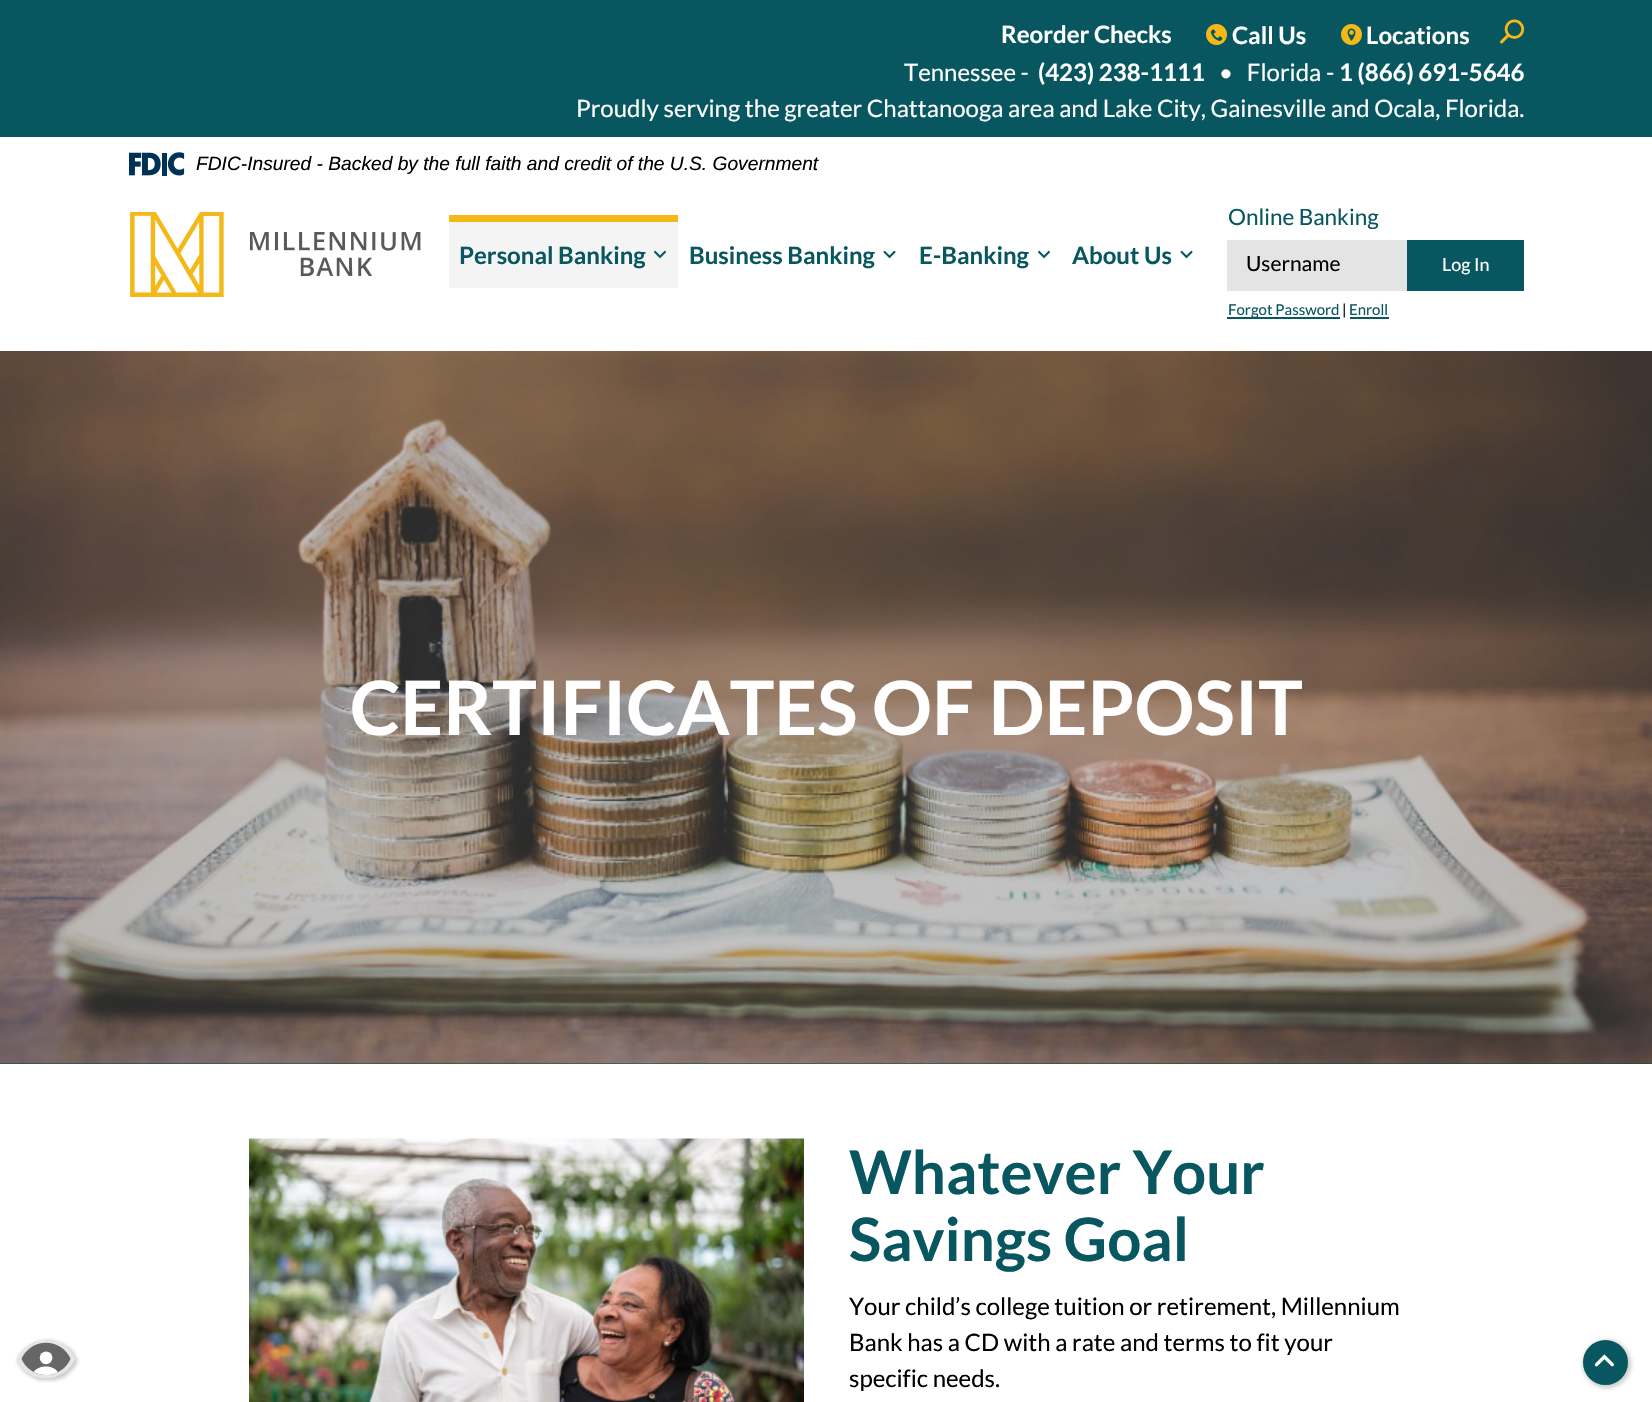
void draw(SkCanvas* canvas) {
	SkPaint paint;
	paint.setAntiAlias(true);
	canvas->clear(0xffffffff);
	paint.setColor(0xff085760);
	canvas->drawRect(SkRect::MakeXYWH(0, 0, 1652, 137), paint);
	SkFont f1(fontMgr->matchFamilyStyle("Lato", SkFontStyle::Bold()), 24);
	f1.setSubpixel(true);
	paint.setColor(0xffffffff);
	canvas->drawString("Reorder Checks", 1001, 43, f1, paint);
	canvas->drawImageRect(SkImages::DeferredFromEncodedData(SkData::MakeFromFileName("img1.png")), SkRect::MakeXYWH(1206, 24, 21, 21), SkSamplingOptions());
	canvas->drawString("Call Us", 1232, 44, f1, paint);
	canvas->drawImageRect(SkImages::DeferredFromEncodedData(SkData::MakeFromFileName("img2.png")), SkRect::MakeXYWH(1341, 24, 21, 21), SkSamplingOptions());
	canvas->drawString("Locations", 1366, 44, f1, paint);
	canvas->drawImageRect(SkImages::DeferredFromEncodedData(SkData::MakeFromFileName("img3.png")), SkRect::MakeXYWH(1500, 19, 25, 25), SkSamplingOptions());
	SkFont f2(fontMgr->matchFamilyStyle("Lato", SkFontStyle::Normal()), 24);
	f2.setSubpixel(true);
	canvas->drawString("Tennessee -", 904, 81, f2, paint);
	canvas->drawString("(423) 238-1111", 1038, 81, f1, paint);
	canvas->drawString("•   Florida -", 1219, 81, f2, paint);
	canvas->drawString("1 (866) 691-5646", 1339, 81, f1, paint);
	canvas->drawString("Proudly serving the greater Chattanooga area and Lake City, Gainesville and Ocala, Florida.", 576, 117, f2, paint);
	canvas->drawImageRect(SkImages::DeferredFromEncodedData(SkData::MakeFromFileName("img4.png")), SkRect::MakeXYWH(129, 152, 56, 24), SkSamplingOptions());
	SkFont f3(fontMgr->matchFamilyStyle("Liberation Sans", SkFontStyle::Italic()), 19.2);
	f3.setSubpixel(true);
	paint.setColor(0xff000000);
	canvas->drawString("FDIC-Insured - Backed by the full faith and credit of the U.S. Government", 196, 170, f3, paint);
	canvas->drawImageRect(SkImages::DeferredFromEncodedData(SkData::MakeFromFileName("img5.png")), SkRect::MakeXYWH(130, 212, 291, 85), SkSamplingOptions());
	paint.setColor(0xfff4f4f4);
	canvas->drawRect(SkRect::MakeXYWH(449, 222, 229, 66), paint);
	paint.setColor(0xfff4b919);
	canvas->drawRect(SkRect::MakeXYWH(449, 215, 229, 7), paint);
	paint.setColor(0xff085760);
	canvas->drawString("Personal Banking", 459, 264, f1, paint);
	canvas->drawImageRect(SkImages::DeferredFromEncodedData(SkData::MakeFromFileName("img6.png")), SkRect::MakeXYWH(654, 250, 12, 9), SkSamplingOptions());
	canvas->drawString("Business Banking", 689, 264, f1, paint);
	canvas->drawImageRect(SkImages::DeferredFromEncodedData(SkData::MakeFromFileName("img7.png")), SkRect::MakeXYWH(883, 250, 13, 9), SkSamplingOptions());
	canvas->drawString("E-Banking", 919, 264, f1, paint);
	canvas->drawImageRect(SkImages::DeferredFromEncodedData(SkData::MakeFromFileName("img8.png")), SkRect::MakeXYWH(1038, 250, 12, 9), SkSamplingOptions());
	canvas->drawString("About Us", 1072, 264, f1, paint);
	canvas->drawImageRect(SkImages::DeferredFromEncodedData(SkData::MakeFromFileName("img7.png")), SkRect::MakeXYWH(1180, 250, 13, 9), SkSamplingOptions());
	SkFont f4(fontMgr->matchFamilyStyle("Lato", SkFontStyle::Normal()), 22.5);
	f4.setSubpixel(true);
	canvas->drawString("Online Banking", 1228, 225, f4, paint);
	paint.setColor(0xffe4e4e4);
	canvas->drawRect(SkRect::MakeXYWH(1227, 240, 180, 51), paint);
	SkFont f5(fontMgr->matchFamilyStyle("Lato", SkFontStyle::Normal()), 21);
	f5.setSubpixel(true);
	paint.setColor(0xff000000);
	canvas->drawString("Username", 1246, 271, f5, paint);
	paint.setColor(0xff085760);
	canvas->drawRect(SkRect::MakeXYWH(1407, 240, 117, 51), paint);
	SkFont f6(fontMgr->matchFamilyStyle("Lato", SkFontStyle::Normal()), 18);
	f6.setSubpixel(true);
	paint.setColor(0xffffffff);
	canvas->drawString("Log In", 1442, 271, f6, paint);
	paint.setColor(0xff085760);
	canvas->drawRect(SkRect::MakeXYWH(1227, 317, 113, 2), paint);
	SkFont f7(fontMgr->matchFamilyStyle("Lato", SkFontStyle::Normal()), 15);
	f7.setSubpixel(true);
	canvas->drawString("Forgot Password", 1228, 315, f7, paint);
	paint.setColor(0xff000000);
	canvas->drawString("|", 1342, 315, f7, paint);
	paint.setColor(0xff085760);
	canvas->drawString("Enroll", 1349, 315, f7, paint);
	canvas->drawRect(SkRect::MakeXYWH(1350, 317, 39, 2), paint);
	canvas->drawImageRect(SkImages::DeferredFromEncodedData(SkData::MakeFromFileName("img9.png")), SkRect::MakeXYWH(15, 1338, 65, 45), SkSamplingOptions());
	paint.setColor(0xff06464d);
	canvas->drawRect(SkRect::MakeXYWH(0, 1063, 1652, 1), paint);
	canvas->drawImageRect(SkImages::DeferredFromEncodedData(SkData::MakeFromFileName("img10.png")), SkRect::MakeXYWH(0, 351, 1652, 713), SkSamplingOptions());
	SkFont f8(fontMgr->matchFamilyStyle("Lato", SkFontStyle::Bold()), 75);
	f8.setSubpixel(true);
	paint.setColor(0xffffffff);
	canvas->drawString("CERTIFICATES OF DEPOSIT", 350, 735, f8, paint);
	canvas->drawImageRect(SkImages::DeferredFromEncodedData(SkData::MakeFromFileName("img11.png")), SkRect::MakeXYWH(249, 1138, 555, 264), SkSamplingOptions());
	SkFont f9(fontMgr->matchFamilyStyle("Lato", SkFontStyle::Bold()), 60);
	f9.setSubpixel(true);
	paint.setColor(0xff085760);
	canvas->drawString("Whatever Your", 849, 1194, f9, paint);
	canvas->drawString("Savings Goal", 849, 1261, f9, paint);
	paint.setColor(0xff000000);
	canvas->drawString("Your child’s college tuition or retirement, Millennium", 849, 1315, f2, paint);
	canvas->drawString("Bank has a CD with a rate and terms to fit your", 849, 1351, f2, paint);
	canvas->drawString("specific needs.", 849, 1387, f2, paint);
	paint.setColor(0x33000000);
	paint.setMaskFilter(SkMaskFilter::MakeBlur(kNormal_SkBlurStyle, 2));
	canvas->drawRoundRect(SkRect::MakeXYWH(1583, 1340, 48, 48), 24, 24, paint);
	paint.setMaskFilter(nullptr);
	paint.setColor(0xff085760);
	canvas->drawCircle(1605.5, 1362.5, 21.5, paint);
	paint.setStroke(true);
	paint.setStrokeWidth(2);
	canvas->drawCircle(1605.5, 1362.5, 21.5, paint);
	canvas->drawImageRect(SkImages::DeferredFromEncodedData(SkData::MakeFromFileName("img12.png")), SkRect::MakeXYWH(1594, 1354, 20, 13), SkSamplingOptions());
}
